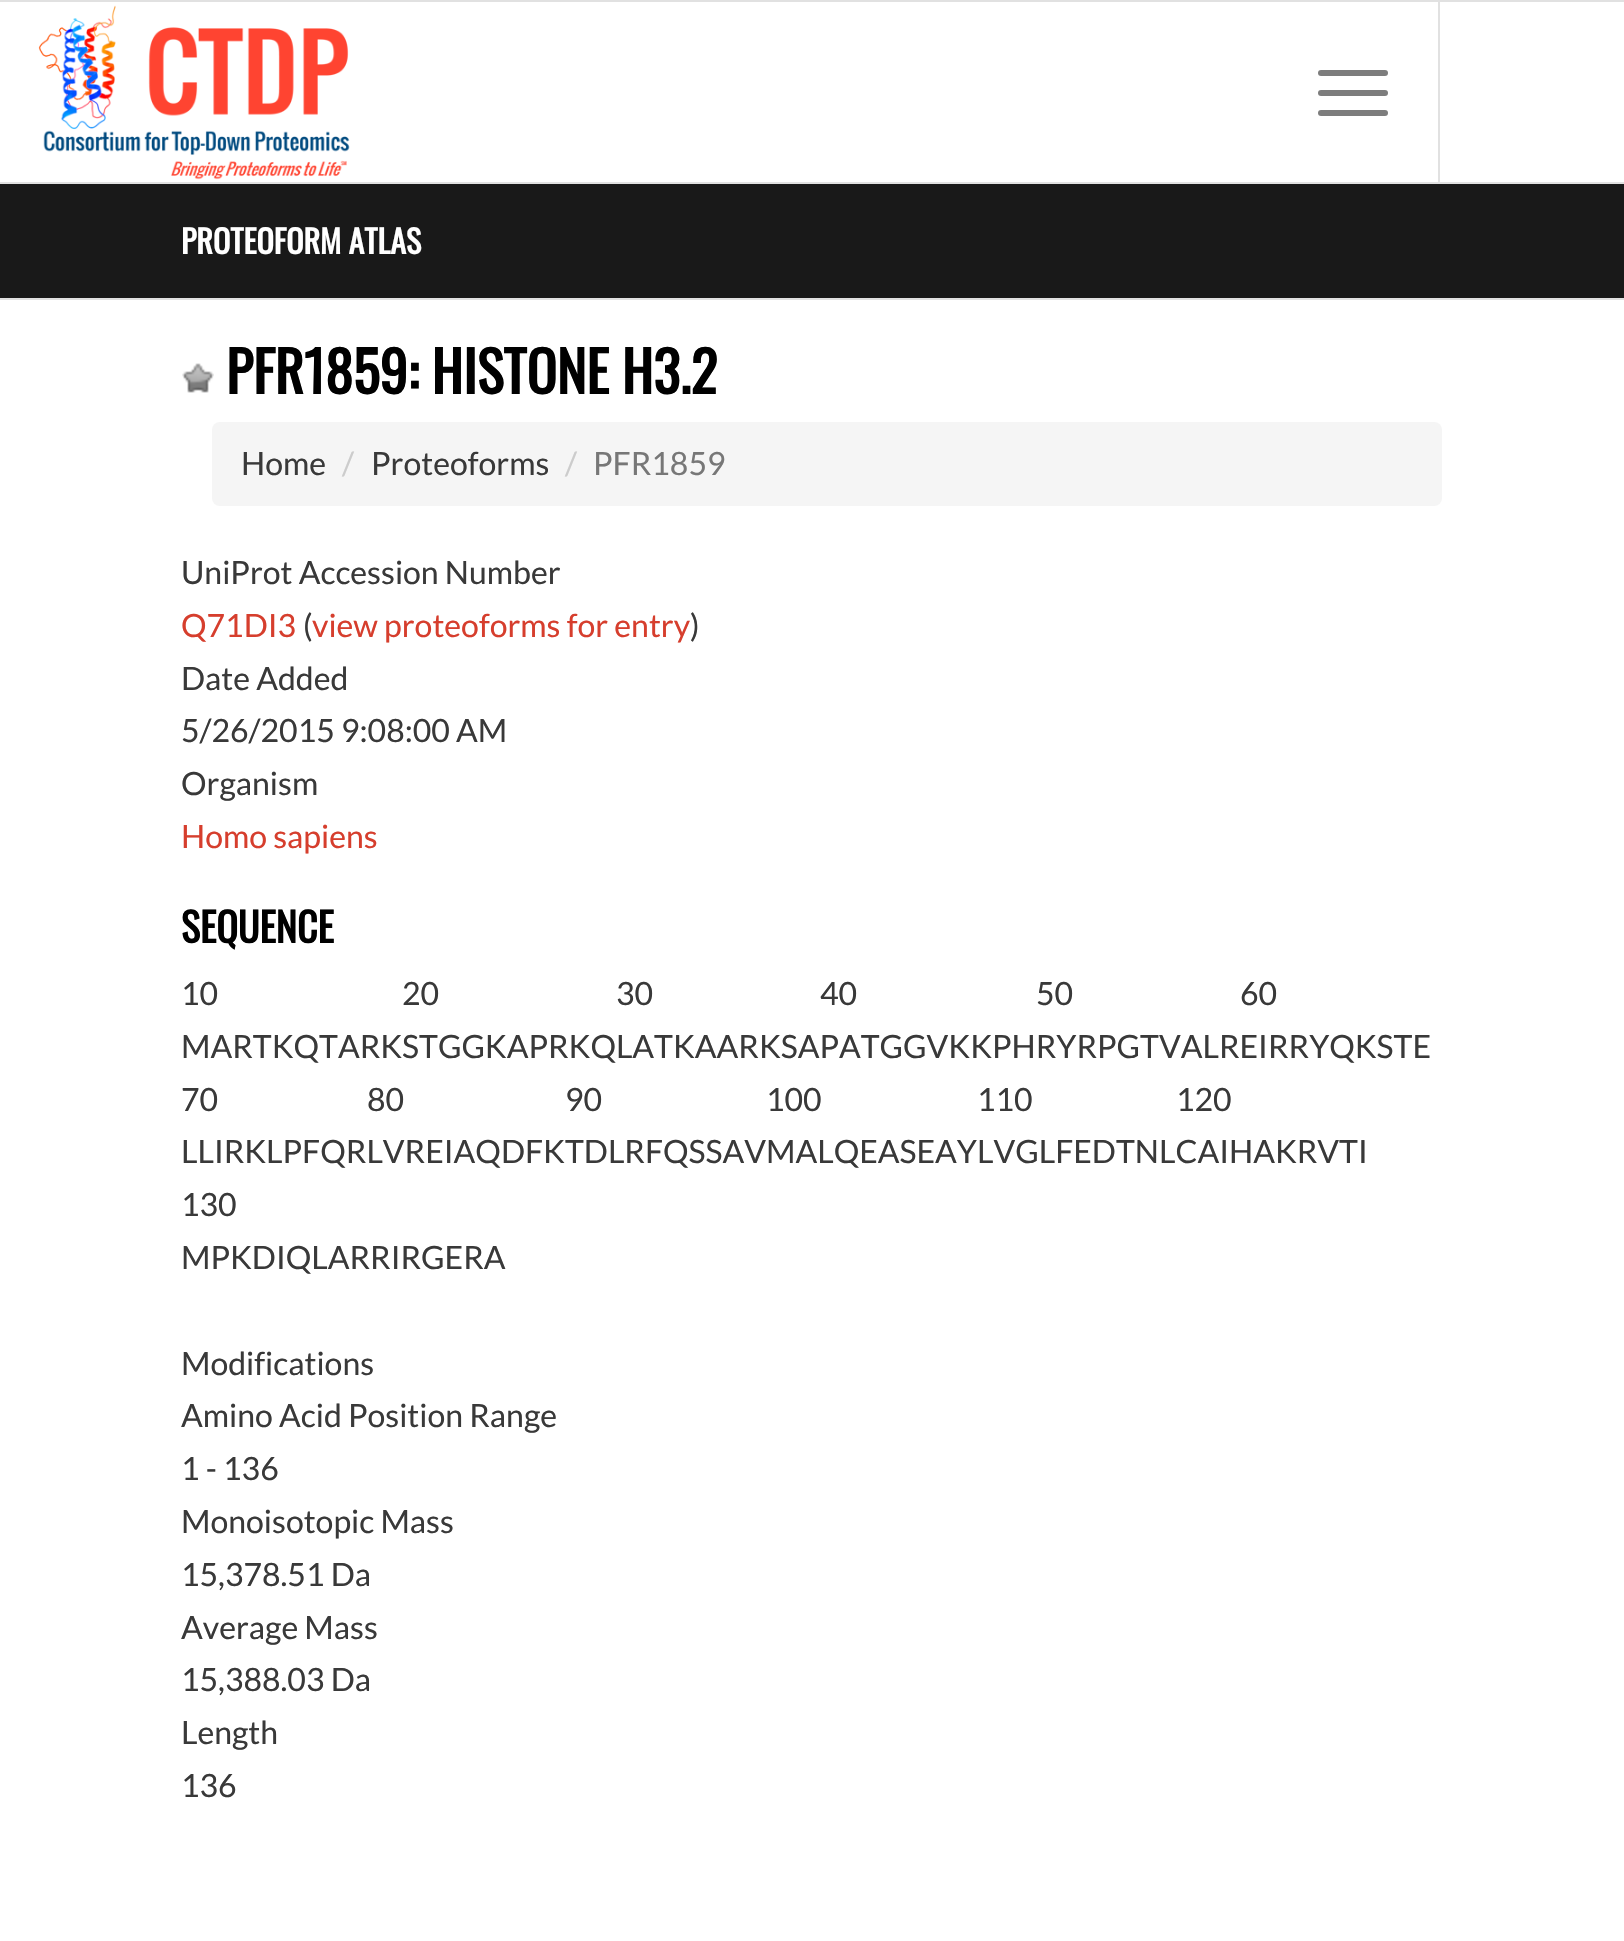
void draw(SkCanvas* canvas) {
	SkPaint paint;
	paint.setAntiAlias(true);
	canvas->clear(0xffffffff);
	paint.setColor(0xffe1e1e1);
	canvas->drawRect(SkRect::MakeXYWH(0, 0, 1624, 2), paint);
	canvas->drawRect(SkRect::MakeXYWH(0, 182, 1624, 2), paint);
	canvas->drawImageRect(SkImages::DeferredFromEncodedData(SkData::MakeFromFileName("img1.png")), SkRect::MakeXYWH(38, 5, 312, 175), SkSamplingOptions());
	canvas->drawRect(SkRect::MakeXYWH(1438, 2, 2, 180), paint);
	paint.setColor(0xff7d7d7d);
	canvas->drawRoundRect(SkRect::MakeXYWH(1318, 90, 70, 6), 3, 3, paint);
	canvas->drawRoundRect(SkRect::MakeXYWH(1318, 70, 70, 6), 3, 3, paint);
	canvas->drawRoundRect(SkRect::MakeXYWH(1318, 110, 70, 6), 3, 3, paint);
	paint.setColor(0xff191919);
	canvas->drawRect(SkRect::MakeXYWH(0, 184, 1624, 114), paint);
	SkFont f1(fontMgr->matchFamilyStyle("Oswald", SkFontStyle::Bold()), 32);
	f1.setSubpixel(true);
	paint.setColor(0xffffffff);
	canvas->drawString("PROTEOFORM ATLAS", 181, 254, f1, paint);
	paint.setColor(0xffe1e1e1);
	canvas->drawRect(SkRect::MakeXYWH(0, 298, 1624, 2), paint);
	canvas->drawImageRect(SkImages::DeferredFromEncodedData(SkData::MakeFromFileName("img2.png")), SkRect::MakeXYWH(182, 363, 32, 30), SkSamplingOptions());
	SkFont f2(fontMgr->matchFamilyStyle("Oswald", SkFontStyle::Bold()), 56);
	f2.setSubpixel(true);
	paint.setColor(0xff000000);
	canvas->drawString("PFR1859: HISTONE H3.2", 226, 394, f2, paint);
	paint.setColor(0xfff5f5f5);
	canvas->drawRoundRect(SkRect::MakeXYWH(212, 422, 1230, 84), 8, 8, paint);
	SkFont f3(fontMgr->matchFamilyStyle("Lato", SkFontStyle::Normal()), 32);
	f3.setSubpixel(true);
	paint.setColor(0xff393939);
	canvas->drawString("Home", 241, 475, f3, paint);
	paint.setColor(0xffcccccc);
	canvas->drawString("/", 342, 475, f3, paint);
	paint.setColor(0xff393939);
	canvas->drawString("Proteoforms", 371, 475, f3, paint);
	paint.setColor(0xffcccccc);
	canvas->drawString("/", 565, 475, f3, paint);
	paint.setColor(0xff777777);
	canvas->drawString("PFR1859", 593, 475, f3, paint);
	paint.setColor(0xff393939);
	canvas->drawString("UniProt Accession Number", 181, 584, f3, paint);
	paint.setColor(0xffd63e2d);
	canvas->drawString("Q71DI3", 181, 637, f3, paint);
	paint.setColor(0xff393939);
	canvas->drawString("(", 303, 637, f3, paint);
	paint.setColor(0xffd63e2d);
	canvas->drawString("view proteoforms for entry", 312, 637, f3, paint);
	paint.setColor(0xff393939);
	canvas->drawString(")", 690, 637, f3, paint);
	canvas->drawString("Date Added", 181, 690, f3, paint);
	canvas->drawString("5/26/2015 9:08:00 AM", 181, 742, f3, paint);
	canvas->drawString("Organism", 181, 795, f3, paint);
	paint.setColor(0xffd63e2d);
	canvas->drawString("Homo sapiens", 181, 848, f3, paint);
	SkFont f4(fontMgr->matchFamilyStyle("Oswald", SkFontStyle::Bold()), 40);
	f4.setSubpixel(true);
	paint.setColor(0xff000000);
	canvas->drawString("SEQUENCE", 181, 943, f4, paint);
	paint.setColor(0xff393939);
	canvas->drawString("10", 181, 1005, f3, paint);
	canvas->drawString("MARTKQTARKSTGGKAPRKQLATKAARKSAPATGGVKKPHRYRPGTVALREIRRYQKSTE", 181, 1058, f3, paint);
	canvas->drawString("20", 402, 1005, f3, paint);
	canvas->drawString("30", 616, 1005, f3, paint);
	canvas->drawString("40", 820, 1005, f3, paint);
	canvas->drawString("50", 1036, 1005, f3, paint);
	canvas->drawString("60", 1240, 1005, f3, paint);
	canvas->drawString("70", 181, 1111, f3, paint);
	canvas->drawString("LLIRKLPFQRLVREIAQDFKTDLRFQSSAVMALQEASEAYLVGLFEDTNLCAIHAKRVTI", 181, 1163, f3, paint);
	canvas->drawString("80", 367, 1111, f3, paint);
	canvas->drawString("90", 565, 1111, f3, paint);
	canvas->drawString("100", 766, 1111, f3, paint);
	canvas->drawString("110", 977, 1111, f3, paint);
	canvas->drawString("120", 1176, 1111, f3, paint);
	canvas->drawString("130", 181, 1216, f3, paint);
	canvas->drawString("MPKDIQLARRIRGERA", 181, 1269, f3, paint);
	canvas->drawString("Modifications", 181, 1375, f3, paint);
	canvas->drawString("Amino Acid Position Range", 181, 1427, f3, paint);
	canvas->drawString("1 - 136", 181, 1480, f3, paint);
	canvas->drawString("Monoisotopic Mass", 181, 1533, f3, paint);
	canvas->drawString("15,378.51 Da", 181, 1586, f3, paint);
	canvas->drawString("Average Mass", 181, 1639, f3, paint);
	canvas->drawString("15,388.03 Da", 181, 1691, f3, paint);
	canvas->drawString("Length", 181, 1744, f3, paint);
	canvas->drawString("136", 181, 1797, f3, paint);
}
